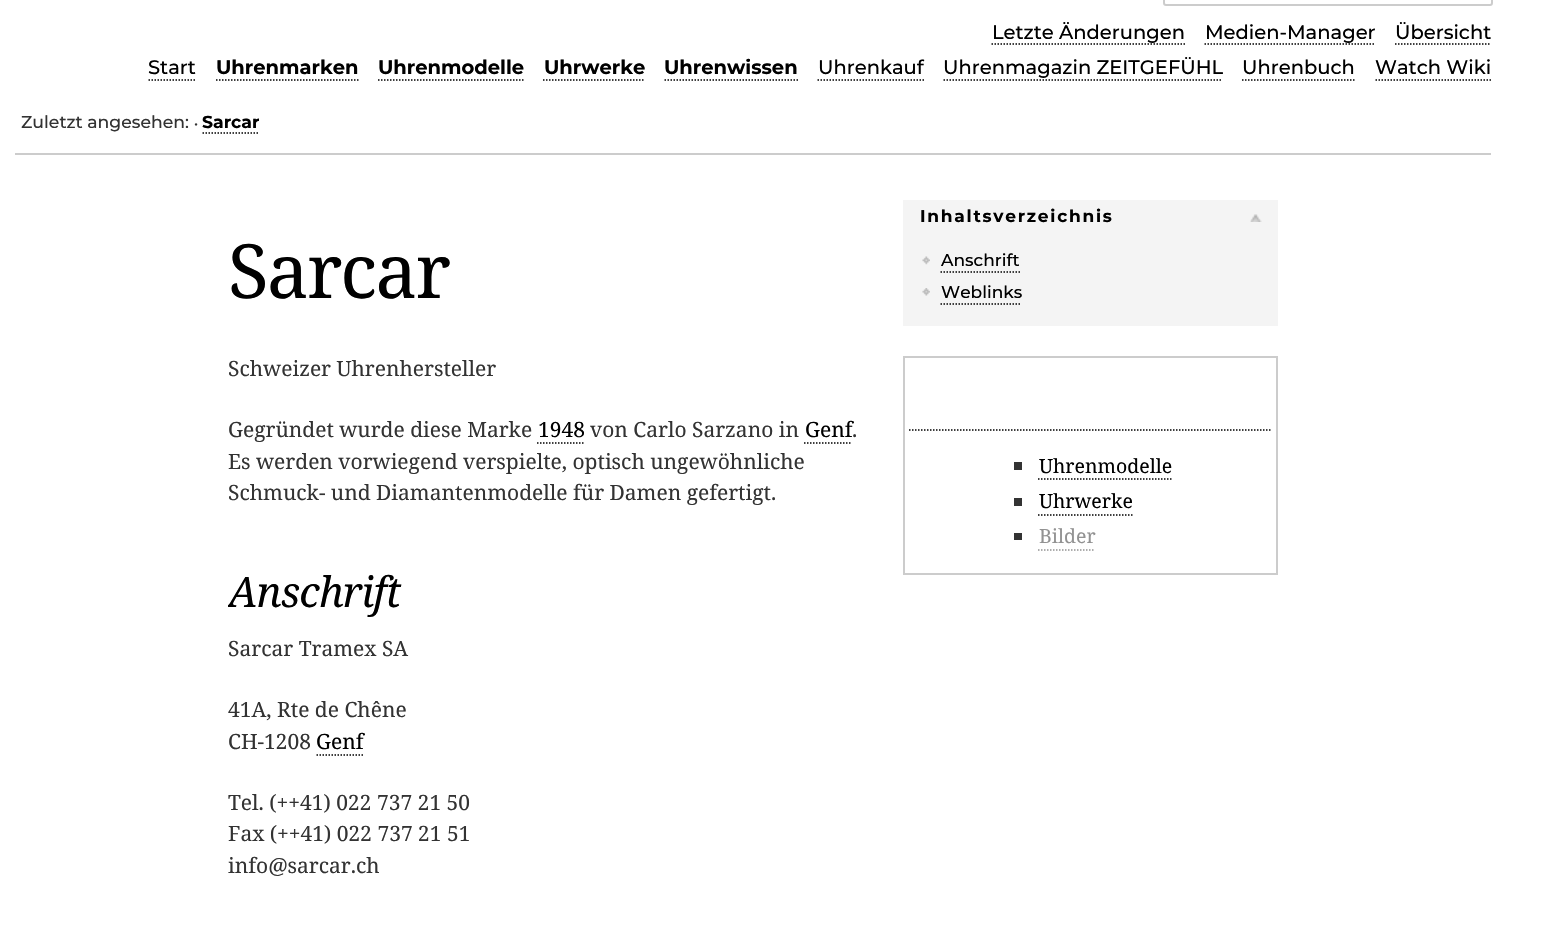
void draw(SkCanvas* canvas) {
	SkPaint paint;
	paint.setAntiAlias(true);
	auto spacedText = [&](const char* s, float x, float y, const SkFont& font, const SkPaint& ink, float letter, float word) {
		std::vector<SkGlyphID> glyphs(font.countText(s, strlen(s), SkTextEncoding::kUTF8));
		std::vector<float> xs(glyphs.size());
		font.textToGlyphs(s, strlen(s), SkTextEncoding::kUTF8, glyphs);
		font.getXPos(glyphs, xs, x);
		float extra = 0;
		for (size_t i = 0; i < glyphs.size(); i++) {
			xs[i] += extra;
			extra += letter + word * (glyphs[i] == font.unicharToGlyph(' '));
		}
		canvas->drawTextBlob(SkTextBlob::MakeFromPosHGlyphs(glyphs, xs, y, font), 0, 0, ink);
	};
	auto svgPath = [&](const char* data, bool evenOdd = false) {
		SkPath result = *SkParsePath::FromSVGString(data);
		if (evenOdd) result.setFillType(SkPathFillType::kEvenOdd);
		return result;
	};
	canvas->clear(0xffffffff);
	paint.setColor(0xffcccccc);
	canvas->drawRect(SkRect::MakeXYWH(15, 153, 1476, 2), paint);
	paint.setStroke(true);
	paint.setStrokeWidth(2);
	canvas->drawRoundRect(SkRect::MakeXYWH(1164, -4, 328, 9), 2, 2, paint);
	SkFont f1(fontMgr->matchFamilyStyle("Montserrat", SkFontStyle(100, SkFontStyle::kNormal_Width, SkFontStyle::kUpright_Slant)), 19.5);
	f1.setSubpixel(true);
	paint.setStroke(false);
	paint.setColor(0xff000000);
	canvas->drawString("Letzte Änderungen", 992, 39, f1, paint);
	paint.setStroke(true);
	paint.setStrokeWidth(1.5);
	paint.setPathEffect(SkDashPathEffect::Make({{1.5f, 1.5f}}, 0));
	canvas->drawPath(svgPath("M991.5 44H1185"), paint);
	paint.setPathEffect(nullptr);
	paint.setStroke(false);
	canvas->drawString("Medien-Manager", 1205, 39, f1, paint);
	paint.setStroke(true);
	paint.setPathEffect(SkDashPathEffect::Make({{1.5f, 1.5f}}, 0));
	canvas->drawPath(svgPath("M1204.5 44H1375.5"), paint);
	paint.setPathEffect(nullptr);
	paint.setStroke(false);
	canvas->drawString("Übersicht", 1395, 39, f1, paint);
	paint.setStroke(true);
	paint.setPathEffect(SkDashPathEffect::Make({{1.5f, 1.5f}}, 0));
	canvas->drawPath(svgPath("M1395 44H1491"), paint);
	paint.setPathEffect(nullptr);
	paint.setStroke(false);
	canvas->drawString("Start", 148, 74, f1, paint);
	paint.setStroke(true);
	paint.setPathEffect(SkDashPathEffect::Make({{1.5f, 1.5f}}, 0));
	canvas->drawPath(svgPath("M148.5 80H196.5"), paint);
	paint.setPathEffect(nullptr);
	SkFont f2(fontMgr->matchFamilyStyle("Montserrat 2", SkFontStyle(100, SkFontStyle::kNormal_Width, SkFontStyle::kUpright_Slant)), 19.5);
	f2.setSubpixel(true);
	paint.setStroke(false);
	canvas->drawString("Uhrenmarken", 216, 74, f2, paint);
	paint.setStroke(true);
	paint.setPathEffect(SkDashPathEffect::Make({{1.5f, 1.5f}}, 0));
	canvas->drawPath(svgPath("M216 80H358.5"), paint);
	paint.setPathEffect(nullptr);
	paint.setStroke(false);
	canvas->drawString("Uhrenmodelle", 378, 74, f2, paint);
	paint.setStroke(true);
	paint.setPathEffect(SkDashPathEffect::Make({{1.5f, 1.5f}}, 0));
	canvas->drawPath(svgPath("M378 80H523.5"), paint);
	paint.setPathEffect(nullptr);
	paint.setStroke(false);
	canvas->drawString("Uhrwerke", 544, 74, f2, paint);
	paint.setStroke(true);
	paint.setPathEffect(SkDashPathEffect::Make({{1.5f, 1.5f}}, 0));
	canvas->drawPath(svgPath("M543 80H645"), paint);
	paint.setPathEffect(nullptr);
	paint.setStroke(false);
	canvas->drawString("Uhrenwissen", 664, 74, f2, paint);
	paint.setStroke(true);
	paint.setPathEffect(SkDashPathEffect::Make({{1.5f, 1.5f}}, 0));
	canvas->drawPath(svgPath("M664.5 80H798"), paint);
	paint.setPathEffect(nullptr);
	paint.setStroke(false);
	canvas->drawString("Uhrenkauf", 818, 74, f1, paint);
	paint.setStroke(true);
	paint.setPathEffect(SkDashPathEffect::Make({{1.5f, 1.5f}}, 0));
	canvas->drawPath(svgPath("M817.5 80H924"), paint);
	paint.setPathEffect(nullptr);
	paint.setStroke(false);
	canvas->drawString("Uhrenmagazin ZEITGEFÜHL", 943, 74, f1, paint);
	paint.setStroke(true);
	paint.setPathEffect(SkDashPathEffect::Make({{1.5f, 1.5f}}, 0));
	canvas->drawPath(svgPath("M943.5 80H1222.5"), paint);
	paint.setPathEffect(nullptr);
	paint.setStroke(false);
	canvas->drawString("Uhrenbuch", 1242, 74, f1, paint);
	paint.setStroke(true);
	paint.setPathEffect(SkDashPathEffect::Make({{1.5f, 1.5f}}, 0));
	canvas->drawPath(svgPath("M1242 80H1356"), paint);
	paint.setPathEffect(nullptr);
	paint.setStroke(false);
	canvas->drawString("Watch Wiki", 1375, 74, f1, paint);
	paint.setStroke(true);
	paint.setPathEffect(SkDashPathEffect::Make({{1.5f, 1.5f}}, 0));
	canvas->drawPath(svgPath("M1375.5 80H1491"), paint);
	paint.setPathEffect(nullptr);
	SkFont f3(fontMgr->matchFamilyStyle("Montserrat", SkFontStyle(100, SkFontStyle::kNormal_Width, SkFontStyle::kUpright_Slant)), 17.25);
	f3.setSubpixel(true);
	paint.setStroke(false);
	paint.setColor(0xff333333);
	canvas->drawString("Zuletzt angesehen:", 21, 128, f3, paint);
	SkFont f4(fontMgr->matchFamilyStyle("Montserrat", SkFontStyle(100, SkFontStyle::kNormal_Width, SkFontStyle::kUpright_Slant)), 13);
	f4.setSubpixel(true);
	canvas->drawString("•", 194, 128, f4, paint);
	SkFont f5(fontMgr->matchFamilyStyle("Montserrat 2", SkFontStyle(100, SkFontStyle::kNormal_Width, SkFontStyle::kUpright_Slant)), 17.25);
	f5.setSubpixel(true);
	paint.setColor(0xff000000);
	canvas->drawString("Sarcar", 202, 128, f5, paint);
	paint.setStroke(true);
	paint.setPathEffect(SkDashPathEffect::Make({{1.5f, 1.5f}}, 0));
	canvas->drawPath(svgPath("M202.5 133H259.5"), paint);
	paint.setPathEffect(nullptr);
	SkFont f6(fontMgr->matchFamilyStyle("Noto Serif", SkFontStyle::Normal()), 75);
	f6.setSubpixel(true);
	paint.setStroke(false);
	spacedText("Sarcar", 228, 298, f6, paint, -2, 0);
	paint.setColor(0xfff4f4f4);
	canvas->drawRect(SkRect::MakeXYWH(903, 200, 375, 126), paint);
	SkFont f7(fontMgr->matchFamilyStyle("Montserrat 2", SkFontStyle(100, SkFontStyle::kNormal_Width, SkFontStyle::kUpright_Slant)), 17);
	f7.setSubpixel(true);
	paint.setColor(0xff000000);
	spacedText("Inhaltsverzeichnis", 920, 222, f7, paint, 1.75, 0);
	canvas->drawImageRect(SkImages::DeferredFromEncodedData(SkData::MakeFromFileName("img1.png")), SkRect::MakeXYWH(1250, 214, 12, 8), SkSamplingOptions());
	canvas->drawImageRect(SkImages::DeferredFromEncodedData(SkData::MakeFromFileName("img2.png")), SkRect::MakeXYWH(922, 256, 8, 9), SkSamplingOptions());
	SkFont f8(fontMgr->matchFamilyStyle("Montserrat", SkFontStyle(100, SkFontStyle::kNormal_Width, SkFontStyle::kUpright_Slant)), 17);
	f8.setSubpixel(true);
	canvas->drawString("Anschrift", 941, 266, f8, paint);
	paint.setStroke(true);
	paint.setPathEffect(SkDashPathEffect::Make({{1.5f, 1.5f}}, 0));
	canvas->drawPath(svgPath("M940.5 272H1020"), paint);
	paint.setPathEffect(nullptr);
	canvas->drawImageRect(SkImages::DeferredFromEncodedData(SkData::MakeFromFileName("img3.png")), SkRect::MakeXYWH(922, 288, 8, 8), SkSamplingOptions());
	paint.setStroke(false);
	canvas->drawString("Weblinks", 941, 298, f8, paint);
	paint.setStroke(true);
	paint.setPathEffect(SkDashPathEffect::Make({{1.5f, 1.5f}}, 0));
	canvas->drawPath(svgPath("M940.5 304H1021.5"), paint);
	paint.setPathEffect(nullptr);
	SkFont f9(fontMgr->matchFamilyStyle("Noto Serif", SkFontStyle::Normal()), 21);
	f9.setSubpixel(true);
	paint.setStroke(false);
	paint.setColor(0xff333333);
	canvas->drawString("Schweizer Uhrenhersteller", 228, 376, f9, paint);
	canvas->drawString("Gegründet wurde diese Marke", 228, 437, f9, paint);
	paint.setColor(0xff000000);
	canvas->drawString("1948", 538, 437, f9, paint);
	paint.setStroke(true);
	paint.setPathEffect(SkDashPathEffect::Make({{1.5f, 1.5f}}, 0));
	canvas->drawPath(svgPath("M537 443H585"), paint);
	paint.setPathEffect(nullptr);
	paint.setStroke(false);
	paint.setColor(0xff333333);
	canvas->drawString("von Carlo Sarzano in", 590, 437, f9, paint);
	paint.setColor(0xff000000);
	canvas->drawString("Genf", 805, 437, f9, paint);
	paint.setStroke(true);
	paint.setPathEffect(SkDashPathEffect::Make({{1.5f, 1.5f}}, 0));
	canvas->drawPath(svgPath("M804 443H852"), paint);
	paint.setPathEffect(nullptr);
	paint.setStroke(false);
	paint.setColor(0xff333333);
	canvas->drawString(".", 852, 437, f9, paint);
	canvas->drawString("Es werden vorwiegend verspielte, optisch ungewöhnliche", 228, 469, f9, paint);
	canvas->drawString("Schmuck- und Diamantenmodelle für Damen gefertigt.", 228, 500, f9, paint);
	paint.setStroke(true);
	paint.setStrokeWidth(2);
	paint.setColor(0xffcccccc);
	canvas->drawRect(SkRect::MakeXYWH(904, 357, 373, 217), paint);
	paint.setStrokeWidth(1.5);
	paint.setColor(0xff000000);
	paint.setPathEffect(SkDashPathEffect::Make({{1.5f, 1.5f}}, 0));
	canvas->drawPath(svgPath("M909 430H1272"), paint);
	paint.setPathEffect(nullptr);
	paint.setStroke(false);
	paint.setColor(0xff333333);
	canvas->drawRect(SkRect::MakeXYWH(1014, 462, 8, 8), paint);
	SkFont f10(fontMgr->matchFamilyStyle("Noto Serif", SkFontStyle::Normal()), 19.5);
	f10.setSubpixel(true);
	paint.setColor(0xff000000);
	canvas->drawString("Uhrenmodelle", 1039, 473, f10, paint);
	paint.setStroke(true);
	paint.setPathEffect(SkDashPathEffect::Make({{1.5f, 1.5f}}, 0));
	canvas->drawPath(svgPath("M1038 479H1171.5"), paint);
	paint.setPathEffect(nullptr);
	paint.setStroke(false);
	paint.setColor(0xff333333);
	canvas->drawRect(SkRect::MakeXYWH(1014, 498, 8, 8), paint);
	paint.setColor(0xff000000);
	canvas->drawString("Uhrwerke", 1039, 508, f10, paint);
	paint.setStroke(true);
	paint.setPathEffect(SkDashPathEffect::Make({{1.5f, 1.5f}}, 0));
	canvas->drawPath(svgPath("M1038 515H1132.5"), paint);
	paint.setPathEffect(nullptr);
	paint.setStroke(false);
	paint.setColor(0xff333333);
	canvas->drawRect(SkRect::MakeXYWH(1014, 533, 8, 7), paint);
	paint.setColor(0xff929292);
	canvas->drawString("Bilder", 1039, 543, f10, paint);
	paint.setStroke(true);
	paint.setPathEffect(SkDashPathEffect::Make({{1.5f, 1.5f}}, 0));
	canvas->drawPath(svgPath("M1038 550H1095"), paint);
	paint.setPathEffect(nullptr);
	canvas->save();
	canvas->clipRect(SkRect::MakeXYWH(228, 200, 1050, 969));
	SkFont f11(fontMgr->matchFamilyStyle("Noto Serif", SkFontStyle::Italic()), 42);
	f11.setSubpixel(true);
	paint.setStroke(false);
	paint.setColor(0xff000000);
	spacedText("Anschrift", 228, 607, f11, paint, -1, 0);
	canvas->restore();
	paint.setColor(0xff333333);
	canvas->drawString("Sarcar Tramex SA", 228, 656, f9, paint);
	canvas->drawString("41A, Rte de Chêne", 228, 717, f9, paint);
	canvas->drawString("CH-1208", 228, 749, f9, paint);
	paint.setColor(0xff000000);
	canvas->drawString("Genf", 316, 749, f9, paint);
	paint.setStroke(true);
	paint.setPathEffect(SkDashPathEffect::Make({{1.5f, 1.5f}}, 0));
	canvas->drawPath(svgPath("M316.5 755H364.5"), paint);
	paint.setPathEffect(nullptr);
	paint.setStroke(false);
	paint.setColor(0xff333333);
	canvas->drawString("Tel. (++41) 022 737 21 50", 228, 810, f9, paint);
	canvas->drawString("Fax (++41) 022 737 21 51", 228, 841, f9, paint);
	canvas->drawString("info@sarcar.ch", 228, 873, f9, paint);
}
